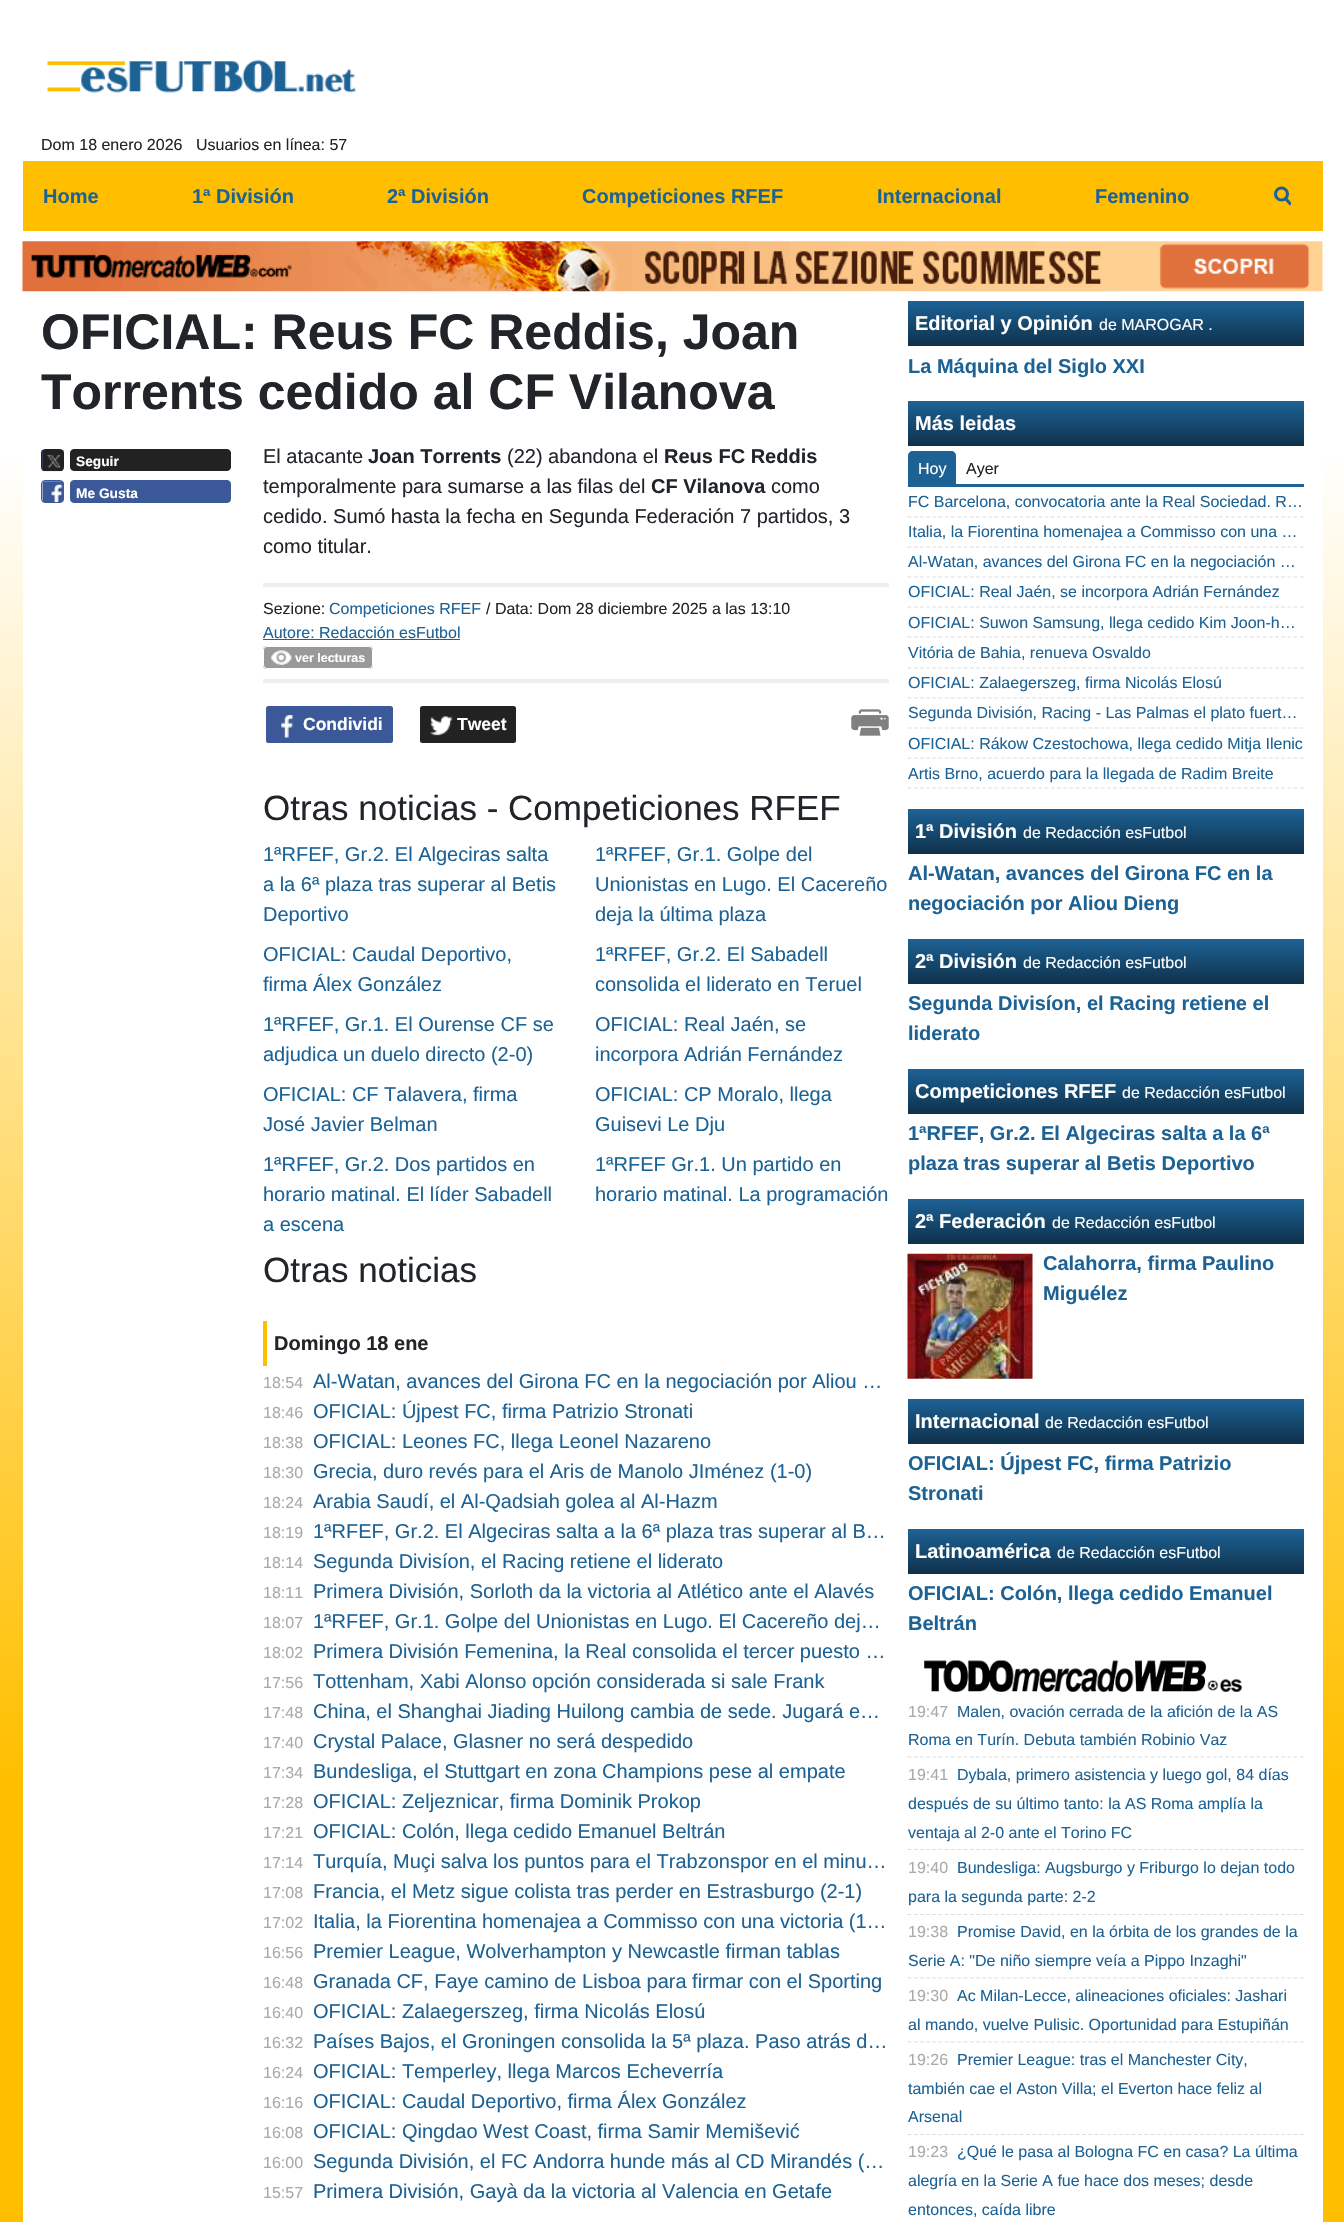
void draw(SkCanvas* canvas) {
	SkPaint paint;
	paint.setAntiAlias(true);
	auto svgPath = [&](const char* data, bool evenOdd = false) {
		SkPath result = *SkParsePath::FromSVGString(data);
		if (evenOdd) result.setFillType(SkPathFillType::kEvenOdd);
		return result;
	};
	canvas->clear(0xffffffff);
	{
		const SkColor colors[] = {0xffffffff, 0xffffbf00, 0xffffbf00};
		const float stops[] = {0.2, 0.8, 1};
		const SkPoint ends[] = {{672, 0}, {673, 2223}};
		paint.setShader(SkGradientShader::MakeLinear(ends, colors, stops, 3, SkTileMode::kClamp));
		paint.setAlpha(255);
	}
	canvas->drawRect(SkRect::MakeXYWH(0, 457, 1344, 1765), paint);
	paint.setShader(nullptr);
	paint.setColor(0xffffffff);
	canvas->drawRect(SkRect::MakeXYWH(23, 457, 1300, 1765), paint);
	canvas->drawImageRect(SkImages::DeferredFromEncodedData(SkData::MakeFromFileName("img1.png")), SkRect::MakeXYWH(47, 59, 310, 34), SkSamplingOptions());
	SkFont f1(fontMgr->matchFamilyStyle("Liberation Sans", SkFontStyle::Normal()), 16);
	f1.setSubpixel(true);
	paint.setColor(0xff212529);
	canvas->drawString("Dom 18 enero 2026", 41, 150, f1, paint);
	canvas->drawString("Usuarios en línea: 57", 196, 150, f1, paint);
	paint.setColor(0xffffbf00);
	canvas->drawRect(SkRect::MakeXYWH(23, 161, 1300, 70), paint);
	SkFont f2(fontMgr->matchFamilyStyle("Liberation Sans", SkFontStyle::Bold()), 20);
	f2.setSubpixel(true);
	paint.setColor(0xff1d6295);
	canvas->drawString("Home", 43, 203, f2, paint);
	canvas->drawString("1ª División", 192, 203, f2, paint);
	canvas->drawString("2ª División", 387, 203, f2, paint);
	canvas->drawString("Competiciones RFEF", 582, 203, f2, paint);
	canvas->drawString("Internacional", 877, 203, f2, paint);
	canvas->drawString("Femenino", 1095, 203, f2, paint);
	canvas->save();
	canvas->clipRect(SkRect::MakeXYWH(1274, 186, 17, 20));
	paint.setStroke(true);
	paint.setStrokeWidth(3.1);
	canvas->drawPath(svgPath("M1291 204.5L1285 198"), paint);
	canvas->restore();
	canvas->drawCircle(1281.5, 194, 6, paint);
	canvas->drawImageRect(SkImages::DeferredFromEncodedData(SkData::MakeFromFileName("img2.png")), SkRect::MakeXYWH(22, 241, 1301, 51), SkSamplingOptions());
	SkFont f3(fontMgr->matchFamilyStyle("Liberation Sans", SkFontStyle::Bold()), 50);
	f3.setSubpixel(true);
	paint.setStroke(false);
	paint.setColor(0xff212529);
	canvas->drawString("OFICIAL: Reus FC Reddis, Joan", 41, 349, f3, paint);
	canvas->drawString("Torrents cedido al CF Vilanova", 41, 409, f3, paint);
	canvas->drawImageRect(SkImages::DeferredFromEncodedData(SkData::MakeFromFileName("img3.png")), SkRect::MakeXYWH(41, 450, 23, 22), SkSamplingOptions());
	paint.setStroke(true);
	paint.setStrokeWidth(1);
	paint.setColor(0xff222222);
	canvas->drawRoundRect(SkRect::MakeXYWH(41.5, 449.5, 22, 21), 3.5, 3.5, paint);
	paint.setStroke(false);
	canvas->drawRoundRect(SkRect::MakeXYWH(70.5, 449.5, 160, 21), 3.5, 3.5, paint);
	paint.setStroke(true);
	canvas->drawRoundRect(SkRect::MakeXYWH(70.5, 449.5, 160, 21), 3.5, 3.5, paint);
	SkFont f4(fontMgr->matchFamilyStyle("Liberation Sans", SkFontStyle::Bold()), 13.75);
	f4.setSubpixel(true);
	paint.setStroke(false);
	paint.setColor(0xffffffff);
	canvas->drawString("Seguir", 76, 466, f4, paint);
	canvas->drawImageRect(SkImages::DeferredFromEncodedData(SkData::MakeFromFileName("img4.png")), SkRect::MakeXYWH(42, 481, 22, 22), SkSamplingOptions());
	paint.setStroke(true);
	paint.setColor(0xff3b5998);
	canvas->drawRoundRect(SkRect::MakeXYWH(41.5, 480.5, 22, 22), 3.5, 3.5, paint);
	paint.setStroke(false);
	canvas->drawRoundRect(SkRect::MakeXYWH(70.5, 480.5, 160, 22), 3.5, 3.5, paint);
	paint.setStroke(true);
	canvas->drawRoundRect(SkRect::MakeXYWH(70.5, 480.5, 160, 22), 3.5, 3.5, paint);
	paint.setStroke(false);
	paint.setColor(0xffffffff);
	canvas->drawString("Me Gusta", 76, 498, f4, paint);
	SkFont f5(fontMgr->matchFamilyStyle("Liberation Sans", SkFontStyle::Normal()), 20);
	f5.setSubpixel(true);
	paint.setColor(0xff212529);
	canvas->drawString("El atacante", 263, 463, f5, paint);
	canvas->drawString("Joan Torrents", 368, 463, f2, paint);
	canvas->drawString("(22) abandona el", 507, 463, f5, paint);
	canvas->drawString("Reus FC Reddis", 664, 463, f2, paint);
	canvas->drawString("temporalmente para sumarse a las filas del", 263, 493, f5, paint);
	canvas->drawString("CF Vilanova", 651, 493, f2, paint);
	canvas->drawString("como", 771, 493, f5, paint);
	canvas->drawString("cedido. Sumó hasta la fecha en Segunda Federación 7 partidos, 3", 263, 523, f5, paint);
	canvas->drawString("como titular.", 263, 553, f5, paint);
	paint.setColor(0xffeeeeee);
	canvas->drawRect(SkRect::MakeXYWH(263, 583, 626, 4), paint);
	canvas->drawRect(SkRect::MakeXYWH(263, 679, 626, 4), paint);
	paint.setColor(0xff212529);
	canvas->drawString("Sezione:", 263, 614, f1, paint);
	paint.setColor(0xff1d6295);
	canvas->drawString("Competiciones RFEF", 329, 614, f1, paint);
	paint.setColor(0xff212529);
	canvas->drawString("/ Data: Dom 28 diciembre 2025 a las 13:10", 486, 614, f1, paint);
	paint.setColor(0xff1d6295);
	canvas->drawString("Autore: Redacción esFutbol", 263, 638, f1, paint);
	canvas->drawRect(SkRect::MakeXYWH(263, 639, 197, 1), paint);
	paint.setColor(0xff999999);
	canvas->drawRoundRect(SkRect::MakeXYWH(263, 646, 110, 23), 4, 4, paint);
	canvas->drawImageRect(SkImages::DeferredFromEncodedData(SkData::MakeFromFileName("img5.png")), SkRect::MakeXYWH(270, 650, 22, 15), SkSamplingOptions());
	paint.setStroke(true);
	paint.setColor(0xffffffff);
	canvas->drawRoundRect(SkRect::MakeXYWH(263.5, 646.5, 109, 22), 3.5, 3.5, paint);
	SkFont f6(fontMgr->matchFamilyStyle("Liberation Sans", SkFontStyle::Bold()), 12.5);
	f6.setSubpixel(true);
	paint.setStroke(false);
	canvas->drawString("ver lecturas", 295, 662, f6, paint);
	paint.setColor(0xff3b5998);
	canvas->drawRoundRect(SkRect::MakeXYWH(266, 706, 127, 37), 2.5, 2.5, paint);
	canvas->drawImageRect(SkImages::DeferredFromEncodedData(SkData::MakeFromFileName("img6.png")), SkRect::MakeXYWH(281, 715, 12, 23), SkSamplingOptions());
	SkFont f7(fontMgr->matchFamilyStyle("Liberation Sans", SkFontStyle::Bold()), 17.5);
	f7.setSubpixel(true);
	paint.setColor(0xffffffff);
	canvas->drawString("Condividi", 303, 730, f7, paint);
	paint.setColor(0xff222222);
	canvas->drawRoundRect(SkRect::MakeXYWH(420, 706, 96, 37), 2.5, 2.5, paint);
	canvas->drawImageRect(SkImages::DeferredFromEncodedData(SkData::MakeFromFileName("img7.png")), SkRect::MakeXYWH(430, 716, 23, 20), SkSamplingOptions());
	paint.setColor(0xffffffff);
	canvas->drawString("Tweet", 457, 730, f7, paint);
	canvas->drawImageRect(SkImages::DeferredFromEncodedData(SkData::MakeFromFileName("img8.png")), SkRect::MakeXYWH(851, 709, 38, 27), SkSamplingOptions());
	SkFont f8(fontMgr->matchFamilyStyle("Liberation Sans", SkFontStyle::Normal()), 35);
	f8.setSubpixel(true);
	paint.setColor(0xff212529);
	canvas->drawString("Otras noticias - Competiciones RFEF", 263, 820, f8, paint);
	paint.setColor(0xff1d6295);
	canvas->drawString("1ªRFEF, Gr.2. El Algeciras salta", 263, 861, f5, paint);
	canvas->drawString("a la 6ª plaza tras superar al Betis", 263, 891, f5, paint);
	canvas->drawString("Deportivo", 263, 921, f5, paint);
	canvas->drawString("1ªRFEF, Gr.1. Golpe del", 595, 861, f5, paint);
	canvas->drawString("Unionistas en Lugo. El Cacereño", 595, 891, f5, paint);
	canvas->drawString("deja la última plaza", 595, 921, f5, paint);
	canvas->drawString("OFICIAL: Caudal Deportivo,", 263, 961, f5, paint);
	canvas->drawString("firma Álex González", 263, 991, f5, paint);
	canvas->drawString("1ªRFEF, Gr.2. El Sabadell", 595, 961, f5, paint);
	canvas->drawString("consolida el liderato en Teruel", 595, 991, f5, paint);
	canvas->drawString("1ªRFEF, Gr.1. El Ourense CF se", 263, 1031, f5, paint);
	canvas->drawString("adjudica un duelo directo (2-0)", 263, 1061, f5, paint);
	canvas->drawString("OFICIAL: Real Jaén, se", 595, 1031, f5, paint);
	canvas->drawString("incorpora Adrián Fernández", 595, 1061, f5, paint);
	canvas->drawString("OFICIAL: CF Talavera, firma", 263, 1101, f5, paint);
	canvas->drawString("José Javier Belman", 263, 1131, f5, paint);
	canvas->drawString("OFICIAL: CP Moralo, llega", 595, 1101, f5, paint);
	canvas->drawString("Guisevi Le Dju", 595, 1131, f5, paint);
	canvas->drawString("1ªRFEF, Gr.2. Dos partidos en", 263, 1171, f5, paint);
	canvas->drawString("horario matinal. El líder Sabadell", 263, 1201, f5, paint);
	canvas->drawString("a escena", 263, 1231, f5, paint);
	canvas->drawString("1ªRFEF Gr.1. Un partido en", 595, 1171, f5, paint);
	canvas->drawString("horario matinal. La programación", 595, 1201, f5, paint);
	paint.setColor(0xff212529);
	canvas->drawString("Otras noticias", 263, 1282, f8, paint);
	paint.setColor(0xffffbf00);
	canvas->drawRect(SkRect::MakeXYWH(263, 1321, 4, 45), paint);
	paint.setColor(0xff212529);
	canvas->drawString("Domingo 18 ene", 274, 1350, f2, paint);
	paint.setColor(0xffaaaaaa);
	canvas->drawString("18:54", 263, 1388, f1, paint);
	paint.setColor(0xff1d6295);
	canvas->drawString("Al-Watan, avances del Girona FC en la negociación por Aliou …", 313, 1388, f5, paint);
	paint.setColor(0xffaaaaaa);
	canvas->drawString("18:46", 263, 1418, f1, paint);
	paint.setColor(0xff1d6295);
	canvas->drawString("OFICIAL: Újpest FC, firma Patrizio Stronati", 313, 1418, f5, paint);
	paint.setColor(0xffaaaaaa);
	canvas->drawString("18:38", 263, 1448, f1, paint);
	paint.setColor(0xff1d6295);
	canvas->drawString("OFICIAL: Leones FC, llega Leonel Nazareno", 313, 1448, f5, paint);
	paint.setColor(0xffaaaaaa);
	canvas->drawString("18:30", 263, 1478, f1, paint);
	paint.setColor(0xff1d6295);
	canvas->drawString("Grecia, duro revés para el Aris de Manolo JIménez (1-0)", 313, 1478, f5, paint);
	paint.setColor(0xffaaaaaa);
	canvas->drawString("18:24", 263, 1508, f1, paint);
	paint.setColor(0xff1d6295);
	canvas->drawString("Arabia Saudí, el Al-Qadsiah golea al Al-Hazm", 313, 1508, f5, paint);
	paint.setColor(0xffaaaaaa);
	canvas->drawString("18:19", 263, 1538, f1, paint);
	paint.setColor(0xff1d6295);
	canvas->drawString("1ªRFEF, Gr.2. El Algeciras salta a la 6ª plaza tras superar al B…", 313, 1538, f5, paint);
	paint.setColor(0xffaaaaaa);
	canvas->drawString("18:14", 263, 1568, f1, paint);
	paint.setColor(0xff1d6295);
	canvas->drawString("Segunda Divisíon, el Racing retiene el liderato", 313, 1568, f5, paint);
	paint.setColor(0xffaaaaaa);
	canvas->drawString("18:11", 263, 1598, f1, paint);
	paint.setColor(0xff1d6295);
	canvas->drawString("Primera División, Sorloth da la victoria al Atlético ante el Alavés", 313, 1598, f5, paint);
	paint.setColor(0xffaaaaaa);
	canvas->drawString("18:07", 263, 1628, f1, paint);
	paint.setColor(0xff1d6295);
	canvas->drawString("1ªRFEF, Gr.1. Golpe del Unionistas en Lugo. El Cacereño dej…", 313, 1628, f5, paint);
	paint.setColor(0xffaaaaaa);
	canvas->drawString("18:02", 263, 1658, f1, paint);
	paint.setColor(0xff1d6295);
	canvas->drawString("Primera División Femenina, la Real consolida el tercer puesto …", 313, 1658, f5, paint);
	paint.setColor(0xffaaaaaa);
	canvas->drawString("17:56", 263, 1688, f1, paint);
	paint.setColor(0xff1d6295);
	canvas->drawString("Tottenham, Xabi Alonso opción considerada si sale Frank", 313, 1688, f5, paint);
	paint.setColor(0xffaaaaaa);
	canvas->drawString("17:48", 263, 1718, f1, paint);
	paint.setColor(0xff1d6295);
	canvas->drawString("China, el Shanghai Jiading Huilong cambia de sede. Jugará e…", 313, 1718, f5, paint);
	paint.setColor(0xffaaaaaa);
	canvas->drawString("17:40", 263, 1748, f1, paint);
	paint.setColor(0xff1d6295);
	canvas->drawString("Crystal Palace, Glasner no será despedido", 313, 1748, f5, paint);
	paint.setColor(0xffaaaaaa);
	canvas->drawString("17:34", 263, 1778, f1, paint);
	paint.setColor(0xff1d6295);
	canvas->drawString("Bundesliga, el Stuttgart en zona Champions pese al empate", 313, 1778, f5, paint);
	paint.setColor(0xffaaaaaa);
	canvas->drawString("17:28", 263, 1808, f1, paint);
	paint.setColor(0xff1d6295);
	canvas->drawString("OFICIAL: Zeljeznicar, firma Dominik Prokop", 313, 1808, f5, paint);
	paint.setColor(0xffaaaaaa);
	canvas->drawString("17:21", 263, 1838, f1, paint);
	paint.setColor(0xff1d6295);
	canvas->drawString("OFICIAL: Colón, llega cedido Emanuel Beltrán", 313, 1838, f5, paint);
	paint.setColor(0xffaaaaaa);
	canvas->drawString("17:14", 263, 1868, f1, paint);
	paint.setColor(0xff1d6295);
	canvas->drawString("Turquía, Muçi salva los puntos para el Trabzonspor en el minu…", 313, 1868, f5, paint);
	paint.setColor(0xffaaaaaa);
	canvas->drawString("17:08", 263, 1898, f1, paint);
	paint.setColor(0xff1d6295);
	canvas->drawString("Francia, el Metz sigue colista tras perder en Estrasburgo (2-1)", 313, 1898, f5, paint);
	paint.setColor(0xffaaaaaa);
	canvas->drawString("17:02", 263, 1928, f1, paint);
	paint.setColor(0xff1d6295);
	canvas->drawString("Italia, la Fiorentina homenajea a Commisso con una victoria (1…", 313, 1928, f5, paint);
	paint.setColor(0xffaaaaaa);
	canvas->drawString("16:56", 263, 1958, f1, paint);
	paint.setColor(0xff1d6295);
	canvas->drawString("Premier League, Wolverhampton y Newcastle firman tablas", 313, 1958, f5, paint);
	paint.setColor(0xffaaaaaa);
	canvas->drawString("16:48", 263, 1988, f1, paint);
	paint.setColor(0xff1d6295);
	canvas->drawString("Granada CF, Faye camino de Lisboa para firmar con el Sporting", 313, 1988, f5, paint);
	paint.setColor(0xffaaaaaa);
	canvas->drawString("16:40", 263, 2018, f1, paint);
	paint.setColor(0xff1d6295);
	canvas->drawString("OFICIAL: Zalaegerszeg, firma Nicolás Elosú", 313, 2018, f5, paint);
	paint.setColor(0xffaaaaaa);
	canvas->drawString("16:32", 263, 2048, f1, paint);
	paint.setColor(0xff1d6295);
	canvas->drawString("Países Bajos, el Groningen consolida la 5ª plaza. Paso atrás d…", 313, 2048, f5, paint);
	paint.setColor(0xffaaaaaa);
	canvas->drawString("16:24", 263, 2078, f1, paint);
	paint.setColor(0xff1d6295);
	canvas->drawString("OFICIAL: Temperley, llega Marcos Echeverría", 313, 2078, f5, paint);
	paint.setColor(0xffaaaaaa);
	canvas->drawString("16:16", 263, 2108, f1, paint);
	paint.setColor(0xff1d6295);
	canvas->drawString("OFICIAL: Caudal Deportivo, firma Álex González", 313, 2108, f5, paint);
	paint.setColor(0xffaaaaaa);
	canvas->drawString("16:08", 263, 2138, f1, paint);
	paint.setColor(0xff1d6295);
	canvas->drawString("OFICIAL: Qingdao West Coast, firma Samir Memišević", 313, 2138, f5, paint);
	paint.setColor(0xffaaaaaa);
	canvas->drawString("16:00", 263, 2168, f1, paint);
	paint.setColor(0xff1d6295);
	canvas->drawString("Segunda División, el FC Andorra hunde más al CD Mirandés (…", 313, 2168, f5, paint);
	paint.setColor(0xffaaaaaa);
	canvas->drawString("15:57", 263, 2198, f1, paint);
	paint.setColor(0xff1d6295);
	canvas->drawString("Primera División, Gayà da la victoria al Valencia en Getafe", 313, 2198, f5, paint);
	{
		const SkColor colors[] = {0xff1d6295, 0xff0f314b};
		const float stops[] = {0, 1};
		const SkPoint ends[] = {{1106, 301}, {1106, 346}};
		paint.setShader(SkGradientShader::MakeLinear(ends, colors, stops, 2, SkTileMode::kClamp));
		paint.setAlpha(255);
	}
	canvas->drawRect(SkRect::MakeXYWH(908, 301, 396, 45), paint);
	paint.setShader(nullptr);
	paint.setColor(0xffffffff);
	canvas->drawString("Editorial y Opinión", 915, 330, f2, paint);
	canvas->drawString("de MAROGAR .", 1099, 330, f1, paint);
	paint.setColor(0xff1d6295);
	canvas->drawString("La Máquina del Siglo XXI", 908, 373, f2, paint);
	{
		const SkColor colors[] = {0xff1d6295, 0xff0f314b};
		const float stops[] = {0, 1};
		const SkPoint ends[] = {{1106, 401}, {1106, 446}};
		paint.setShader(SkGradientShader::MakeLinear(ends, colors, stops, 2, SkTileMode::kClamp));
		paint.setAlpha(255);
	}
	canvas->drawRect(SkRect::MakeXYWH(908, 401, 396, 45), paint);
	paint.setShader(nullptr);
	paint.setColor(0xffffffff);
	canvas->drawString("Más leidas", 915, 430, f2, paint);
	paint.setColor(0xff1d6295);
	canvas->drawRect(SkRect::MakeXYWH(908, 484, 396, 3), paint);
	canvas->drawPath(svgPath("M913 451H951C954 451 956 453 956 456V485H908V456C908 453 910 451 913 451Z"), paint);
	paint.setColor(0xffffffff);
	canvas->drawString("Hoy", 918, 474, f1, paint);
	paint.setColor(0xff212529);
	canvas->drawString("Ayer", 966, 474, f1, paint);
	paint.setStroke(true);
	paint.setStrokeWidth(1.2);
	paint.setColor(0xffdddddd);
	paint.setPathEffect(SkDashPathEffect::Make({{3.75f, 2.48f}}, 0));
	canvas->drawPath(svgPath("M907.5 517H1304"), paint);
	paint.setPathEffect(nullptr);
	paint.setStroke(false);
	paint.setColor(0xff1d6295);
	canvas->drawString("FC Barcelona, convocatoria ante la Real Sociedad. R…", 908, 507, f1, paint);
	paint.setStroke(true);
	paint.setColor(0xffdddddd);
	paint.setPathEffect(SkDashPathEffect::Make({{3.75f, 2.48f}}, 0));
	canvas->drawPath(svgPath("M907.5 547H1304"), paint);
	paint.setPathEffect(nullptr);
	paint.setStroke(false);
	paint.setColor(0xff1d6295);
	canvas->drawString("Italia, la Fiorentina homenajea a Commisso con una …", 908, 537, f1, paint);
	paint.setStroke(true);
	paint.setColor(0xffdddddd);
	paint.setPathEffect(SkDashPathEffect::Make({{3.75f, 2.48f}}, 0));
	canvas->drawPath(svgPath("M907.5 577H1304"), paint);
	paint.setPathEffect(nullptr);
	paint.setStroke(false);
	paint.setColor(0xff1d6295);
	canvas->drawString("Al-Watan, avances del Girona FC en la negociación …", 908, 567, f1, paint);
	paint.setStroke(true);
	paint.setColor(0xffdddddd);
	paint.setPathEffect(SkDashPathEffect::Make({{3.75f, 2.48f}}, 0));
	canvas->drawPath(svgPath("M907.5 607H1304"), paint);
	paint.setPathEffect(nullptr);
	paint.setStroke(false);
	paint.setColor(0xff1d6295);
	canvas->drawString("OFICIAL: Real Jaén, se incorpora Adrián Fernández", 908, 597, f1, paint);
	paint.setStroke(true);
	paint.setColor(0xffdddddd);
	paint.setPathEffect(SkDashPathEffect::Make({{3.75f, 2.48f}}, 0));
	canvas->drawPath(svgPath("M907.5 637H1304"), paint);
	paint.setPathEffect(nullptr);
	paint.setStroke(false);
	paint.setColor(0xff1d6295);
	canvas->drawString("OFICIAL: Suwon Samsung, llega cedido Kim Joon-h…", 908, 628, f1, paint);
	paint.setStroke(true);
	paint.setColor(0xffdddddd);
	paint.setPathEffect(SkDashPathEffect::Make({{3.75f, 2.48f}}, 0));
	canvas->drawPath(svgPath("M907.5 668H1304"), paint);
	paint.setPathEffect(nullptr);
	paint.setStroke(false);
	paint.setColor(0xff1d6295);
	canvas->drawString("Vitória de Bahia, renueva Osvaldo", 908, 658, f1, paint);
	paint.setStroke(true);
	paint.setColor(0xffdddddd);
	paint.setPathEffect(SkDashPathEffect::Make({{3.75f, 2.48f}}, 0));
	canvas->drawPath(svgPath("M907.5 698H1304"), paint);
	paint.setPathEffect(nullptr);
	paint.setStroke(false);
	paint.setColor(0xff1d6295);
	canvas->drawString("OFICIAL: Zalaegerszeg, firma Nicolás Elosú", 908, 688, f1, paint);
	paint.setStroke(true);
	paint.setColor(0xffdddddd);
	paint.setPathEffect(SkDashPathEffect::Make({{3.75f, 2.48f}}, 0));
	canvas->drawPath(svgPath("M907.5 728H1304"), paint);
	paint.setPathEffect(nullptr);
	paint.setStroke(false);
	paint.setColor(0xff1d6295);
	canvas->drawString("Segunda División, Racing - Las Palmas el plato fuert…", 908, 718, f1, paint);
	paint.setStroke(true);
	paint.setColor(0xffdddddd);
	paint.setPathEffect(SkDashPathEffect::Make({{3.75f, 2.48f}}, 0));
	canvas->drawPath(svgPath("M907.5 758H1304"), paint);
	paint.setPathEffect(nullptr);
	paint.setStroke(false);
	paint.setColor(0xff1d6295);
	canvas->drawString("OFICIAL: Rákow Czestochowa, llega cedido Mitja Ilenic", 908, 749, f1, paint);
	paint.setStroke(true);
	paint.setColor(0xffdddddd);
	paint.setPathEffect(SkDashPathEffect::Make({{3.75f, 2.48f}}, 0));
	canvas->drawPath(svgPath("M907.5 788H1304"), paint);
	paint.setPathEffect(nullptr);
	paint.setStroke(false);
	paint.setColor(0xff1d6295);
	canvas->drawString("Artis Brno, acuerdo para la llegada de Radim Breite", 908, 779, f1, paint);
	{
		const SkColor colors[] = {0xff1d6295, 0xff0f314b};
		const float stops[] = {0, 1};
		const SkPoint ends[] = {{1106, 809}, {1106, 854}};
		paint.setShader(SkGradientShader::MakeLinear(ends, colors, stops, 2, SkTileMode::kClamp));
		paint.setAlpha(255);
	}
	canvas->drawRect(SkRect::MakeXYWH(908, 809, 396, 45), paint);
	paint.setShader(nullptr);
	paint.setColor(0xffffffff);
	canvas->drawString("1ª División", 915, 838, f2, paint);
	canvas->drawString("de Redacción esFutbol", 1023, 838, f1, paint);
	paint.setColor(0xff1d6295);
	canvas->drawString("Al-Watan, avances del Girona FC en la", 908, 880, f2, paint);
	canvas->drawString("negociación por Aliou Dieng", 908, 910, f2, paint);
	{
		const SkColor colors[] = {0xff1d6295, 0xff0f314b};
		const float stops[] = {0, 1};
		const SkPoint ends[] = {{1106, 939}, {1106, 984}};
		paint.setShader(SkGradientShader::MakeLinear(ends, colors, stops, 2, SkTileMode::kClamp));
		paint.setAlpha(255);
	}
	canvas->drawRect(SkRect::MakeXYWH(908, 939, 396, 45), paint);
	paint.setShader(nullptr);
	paint.setColor(0xffffffff);
	canvas->drawString("2ª División", 915, 968, f2, paint);
	canvas->drawString("de Redacción esFutbol", 1023, 968, f1, paint);
	paint.setColor(0xff1d6295);
	canvas->drawString("Segunda Divisíon, el Racing retiene el", 908, 1010, f2, paint);
	canvas->drawString("liderato", 908, 1040, f2, paint);
	{
		const SkColor colors[] = {0xff1d6295, 0xff0f314b};
		const float stops[] = {0, 1};
		const SkPoint ends[] = {{1106, 1069}, {1106, 1114}};
		paint.setShader(SkGradientShader::MakeLinear(ends, colors, stops, 2, SkTileMode::kClamp));
		paint.setAlpha(255);
	}
	canvas->drawRect(SkRect::MakeXYWH(908, 1069, 396, 45), paint);
	paint.setShader(nullptr);
	paint.setColor(0xffffffff);
	canvas->drawString("Competiciones RFEF", 915, 1098, f2, paint);
	canvas->drawString("de Redacción esFutbol", 1122, 1098, f1, paint);
	paint.setColor(0xff1d6295);
	canvas->drawString("1ªRFEF, Gr.2. El Algeciras salta a la 6ª", 908, 1140, f2, paint);
	canvas->drawString("plaza tras superar al Betis Deportivo", 908, 1170, f2, paint);
	{
		const SkColor colors[] = {0xff1d6295, 0xff0f314b};
		const float stops[] = {0, 1};
		const SkPoint ends[] = {{1106, 1199}, {1106, 1244}};
		paint.setShader(SkGradientShader::MakeLinear(ends, colors, stops, 2, SkTileMode::kClamp));
		paint.setAlpha(255);
	}
	canvas->drawRect(SkRect::MakeXYWH(908, 1199, 396, 45), paint);
	paint.setShader(nullptr);
	paint.setColor(0xffffffff);
	canvas->drawString("2ª Federación", 915, 1228, f2, paint);
	canvas->drawString("de Redacción esFutbol", 1052, 1228, f1, paint);
	canvas->drawImageRect(SkImages::DeferredFromEncodedData(SkData::MakeFromFileName("img9.png")), SkRect::MakeXYWH(907, 1253, 126, 126), SkSamplingOptions());
	paint.setColor(0xff1d6295);
	canvas->drawString("Calahorra, firma Paulino", 1043, 1270, f2, paint);
	canvas->drawString("Miguélez", 1043, 1300, f2, paint);
	{
		const SkColor colors[] = {0xff1d6295, 0xff0f314b};
		const float stops[] = {0, 1};
		const SkPoint ends[] = {{1106, 1399}, {1106, 1444}};
		paint.setShader(SkGradientShader::MakeLinear(ends, colors, stops, 2, SkTileMode::kClamp));
		paint.setAlpha(255);
	}
	canvas->drawRect(SkRect::MakeXYWH(908, 1399, 396, 45), paint);
	paint.setShader(nullptr);
	paint.setColor(0xffffffff);
	canvas->drawString("Internacional", 915, 1428, f2, paint);
	canvas->drawString("de Redacción esFutbol", 1045, 1428, f1, paint);
	paint.setColor(0xff1d6295);
	canvas->drawString("OFICIAL: Újpest FC, firma Patrizio", 908, 1470, f2, paint);
	canvas->drawString("Stronati", 908, 1500, f2, paint);
	{
		const SkColor colors[] = {0xff1d6295, 0xff0f314b};
		const float stops[] = {0, 1};
		const SkPoint ends[] = {{1106, 1529}, {1106, 1574}};
		paint.setShader(SkGradientShader::MakeLinear(ends, colors, stops, 2, SkTileMode::kClamp));
		paint.setAlpha(255);
	}
	canvas->drawRect(SkRect::MakeXYWH(908, 1529, 396, 45), paint);
	paint.setShader(nullptr);
	paint.setColor(0xffffffff);
	canvas->drawString("Latinoamérica", 915, 1558, f2, paint);
	canvas->drawString("de Redacción esFutbol", 1057, 1558, f1, paint);
	paint.setColor(0xff1d6295);
	canvas->drawString("OFICIAL: Colón, llega cedido Emanuel", 908, 1600, f2, paint);
	canvas->drawString("Beltrán", 908, 1630, f2, paint);
	canvas->drawImageRect(SkImages::DeferredFromEncodedData(SkData::MakeFromFileName("img10.png")), SkRect::MakeXYWH(924, 1660, 318, 32), SkSamplingOptions());
	paint.setStroke(true);
	paint.setColor(0xffdddddd);
	paint.setPathEffect(SkDashPathEffect::Make({{3.75f, 2.48f}}, 0));
	canvas->drawPath(svgPath("M907.5 1757H1304"), paint);
	paint.setPathEffect(nullptr);
	paint.setStroke(false);
	paint.setColor(0xffaaaaaa);
	canvas->drawString("19:47", 908, 1717, f1, paint);
	paint.setColor(0xff1d6295);
	canvas->drawString("Malen, ovación cerrada de la afición de la AS", 957, 1717, f1, paint);
	canvas->drawString("Roma en Turín. Debuta también Robinio Vaz", 908, 1745, f1, paint);
	paint.setStroke(true);
	paint.setColor(0xffdddddd);
	paint.setPathEffect(SkDashPathEffect::Make({{3.75f, 2.48f}}, 0));
	canvas->drawPath(svgPath("M907.5 1849.5H1304"), paint);
	paint.setPathEffect(nullptr);
	paint.setStroke(false);
	paint.setColor(0xffaaaaaa);
	canvas->drawString("19:41", 908, 1780, f1, paint);
	paint.setColor(0xff1d6295);
	canvas->drawString("Dybala, primero asistencia y luego gol, 84 días", 957, 1780, f1, paint);
	canvas->drawString("después de su último tanto: la AS Roma amplía la", 908, 1809, f1, paint);
	canvas->drawString("ventaja al 2-0 ante el Torino FC", 908, 1838, f1, paint);
	paint.setStroke(true);
	paint.setColor(0xffdddddd);
	paint.setPathEffect(SkDashPathEffect::Make({{3.75f, 2.48f}}, 0));
	canvas->drawPath(svgPath("M907.5 1914.5H1304"), paint);
	paint.setPathEffect(nullptr);
	paint.setStroke(false);
	paint.setColor(0xffaaaaaa);
	canvas->drawString("19:40", 908, 1873, f1, paint);
	paint.setColor(0xff1d6295);
	canvas->drawString("Bundesliga: Augsburgo y Friburgo lo dejan todo", 957, 1873, f1, paint);
	canvas->drawString("para la segunda parte: 2-2", 908, 1902, f1, paint);
	paint.setStroke(true);
	paint.setColor(0xffdddddd);
	paint.setPathEffect(SkDashPathEffect::Make({{3.75f, 2.48f}}, 0));
	canvas->drawPath(svgPath("M907.5 1978H1304"), paint);
	paint.setPathEffect(nullptr);
	paint.setStroke(false);
	paint.setColor(0xffaaaaaa);
	canvas->drawString("19:38", 908, 1937, f1, paint);
	paint.setColor(0xff1d6295);
	canvas->drawString("Promise David, en la órbita de los grandes de la", 957, 1937, f1, paint);
	canvas->drawString("Serie A: \"De niño siempre veía a Pippo Inzaghi\"", 908, 1966, f1, paint);
	paint.setStroke(true);
	paint.setColor(0xffdddddd);
	paint.setPathEffect(SkDashPathEffect::Make({{3.75f, 2.48f}}, 0));
	canvas->drawPath(svgPath("M907.5 2042H1304"), paint);
	paint.setPathEffect(nullptr);
	paint.setStroke(false);
	paint.setColor(0xffaaaaaa);
	canvas->drawString("19:30", 908, 2001, f1, paint);
	paint.setColor(0xff1d6295);
	canvas->drawString("Ac Milan-Lecce, alineaciones oficiales: Jashari", 957, 2001, f1, paint);
	canvas->drawString("al mando, vuelve Pulisic. Oportunidad para Estupiñán", 908, 2030, f1, paint);
	paint.setStroke(true);
	paint.setColor(0xffdddddd);
	paint.setPathEffect(SkDashPathEffect::Make({{3.75f, 2.48f}}, 0));
	canvas->drawPath(svgPath("M907.5 2134.5H1304"), paint);
	paint.setPathEffect(nullptr);
	paint.setStroke(false);
	paint.setColor(0xffaaaaaa);
	canvas->drawString("19:26", 908, 2065, f1, paint);
	paint.setColor(0xff1d6295);
	canvas->drawString("Premier League: tras el Manchester City,", 957, 2065, f1, paint);
	canvas->drawString("también cae el Aston Villa; el Everton hace feliz al", 908, 2094, f1, paint);
	canvas->drawString("Arsenal", 908, 2122, f1, paint);
	paint.setColor(0xffaaaaaa);
	canvas->drawString("19:23", 908, 2157, f1, paint);
	paint.setColor(0xff1d6295);
	canvas->drawString("¿Qué le pasa al Bologna FC en casa? La última", 957, 2157, f1, paint);
	canvas->drawString("alegría en la Serie A fue hace dos meses; desde", 908, 2186, f1, paint);
	canvas->drawString("entonces, caída libre", 908, 2215, f1, paint);
}
